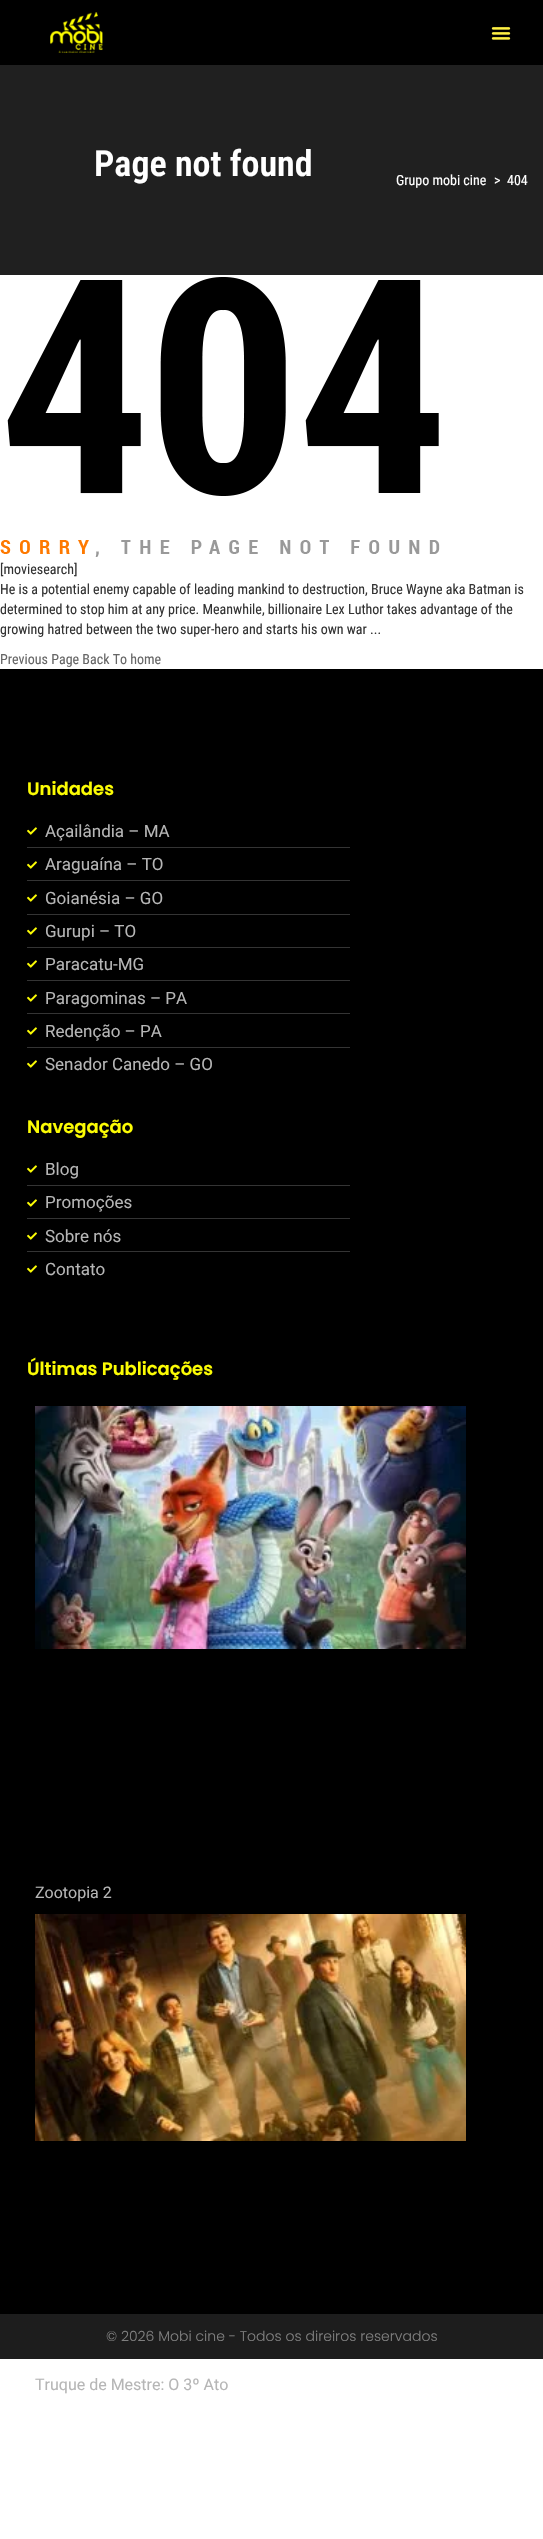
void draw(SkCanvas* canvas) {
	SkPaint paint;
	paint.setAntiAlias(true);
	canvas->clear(0xffffffff);
	paint.setColor(0xff000000);
	canvas->drawRect(SkRect::MakeXYWH(0, 0, 543, 65), paint);
	canvas->drawImageRect(SkImages::DeferredFromEncodedData(SkData::MakeFromFileName("img1.png")), SkRect::MakeXYWH(50, 12, 53, 41), SkSamplingOptions());
	canvas->drawImageRect(SkImages::DeferredFromEncodedData(SkData::MakeFromFileName("img2.png")), SkRect::MakeXYWH(491, 27, 20, 13), SkSamplingOptions());
	paint.setColor(0xff202020);
	canvas->drawRect(SkRect::MakeXYWH(0, 65, 543, 210), paint);
	SkFont f1(fontMgr->matchFamilyStyle("Roboto Condensed", SkFontStyle(600, SkFontStyle::kNormal_Width, SkFontStyle::kUpright_Slant)), 36);
	f1.setSubpixel(true);
	paint.setColor(0xffffffff);
	canvas->drawString("Page not found", 94, 176, f1, paint);
	SkFont f2(fontMgr->matchFamilyStyle("Roboto Condensed", SkFontStyle::Normal()), 14);
	f2.setSubpixel(true);
	canvas->drawString("Grupo mobi cine", 396, 185, f2, paint);
	canvas->drawString(">", 494, 185, f2, paint);
	canvas->drawString("404", 507, 185, f2, paint);
	canvas->drawImageRect(SkImages::DeferredFromEncodedData(SkData::MakeFromFileName("img3.png")), SkRect::MakeXYWH(0, 277, 440, 280), SkSamplingOptions());
	paint.setColor(0xff333333);
	canvas->drawString("[moviesearch]", 0, 574, f2, paint);
	canvas->drawString("He is a potential enemy capable of leading mankind to destruction, Bruce Wayne aka Batman is", 0, 594, f2, paint);
	canvas->drawString("determined to stop him at any price. Meanwhile, billionaire Lex Luthor takes advantage of the", 0, 614, f2, paint);
	canvas->drawString("growing hatred between the two super-hero and starts his own war ...", 0, 634, f2, paint);
	paint.setColor(0xff666666);
	canvas->drawString("Previous Page Back To home", 0, 664, f2, paint);
	paint.setColor(0xff000000);
	canvas->drawRect(SkRect::MakeXYWH(0, 669, 543, 1645), paint);
	SkFont f3(fontMgr->matchFamilyStyle("Poppins", SkFontStyle(600, SkFontStyle::kNormal_Width, SkFontStyle::kUpright_Slant)), 18);
	f3.setSubpixel(true);
	paint.setColor(0xfffcfc04);
	canvas->drawString("Unidades", 27, 795, f3, paint);
	canvas->drawImageRect(SkImages::DeferredFromEncodedData(SkData::MakeFromFileName("img4.png")), SkRect::MakeXYWH(27, 827, 10, 8), SkSamplingOptions());
	SkFont f4(fontMgr->matchFamilyStyle("Roboto", SkFontStyle::Normal()), 17);
	f4.setSubpixel(true);
	paint.setColor(0xffb6b6b6);
	canvas->drawString("Açailândia – MA", 45, 837, f4, paint);
	paint.setColor(0xff343434);
	canvas->drawRect(SkRect::MakeXYWH(27, 847, 323, 1), paint);
	canvas->drawImageRect(SkImages::DeferredFromEncodedData(SkData::MakeFromFileName("img4.png")), SkRect::MakeXYWH(27, 861, 10, 8), SkSamplingOptions());
	paint.setColor(0xffb6b6b6);
	canvas->drawString("Araguaína – TO", 45, 870, f4, paint);
	paint.setColor(0xff343434);
	canvas->drawRect(SkRect::MakeXYWH(27, 880, 323, 1), paint);
	canvas->drawImageRect(SkImages::DeferredFromEncodedData(SkData::MakeFromFileName("img4.png")), SkRect::MakeXYWH(27, 894, 10, 8), SkSamplingOptions());
	paint.setColor(0xffb6b6b6);
	canvas->drawString("Goianésia – GO", 45, 904, f4, paint);
	paint.setColor(0xff343434);
	canvas->drawRect(SkRect::MakeXYWH(27, 914, 323, 1), paint);
	canvas->drawImageRect(SkImages::DeferredFromEncodedData(SkData::MakeFromFileName("img4.png")), SkRect::MakeXYWH(27, 927, 10, 8), SkSamplingOptions());
	paint.setColor(0xffb6b6b6);
	canvas->drawString("Gurupi – TO", 45, 937, f4, paint);
	paint.setColor(0xff343434);
	canvas->drawRect(SkRect::MakeXYWH(27, 947, 323, 1), paint);
	canvas->drawImageRect(SkImages::DeferredFromEncodedData(SkData::MakeFromFileName("img4.png")), SkRect::MakeXYWH(27, 960, 10, 8), SkSamplingOptions());
	paint.setColor(0xffb6b6b6);
	canvas->drawString("Paracatu-MG", 45, 970, f4, paint);
	paint.setColor(0xff343434);
	canvas->drawRect(SkRect::MakeXYWH(27, 980, 323, 1), paint);
	canvas->drawImageRect(SkImages::DeferredFromEncodedData(SkData::MakeFromFileName("img4.png")), SkRect::MakeXYWH(27, 994, 10, 8), SkSamplingOptions());
	paint.setColor(0xffb6b6b6);
	canvas->drawString("Paragominas – PA", 45, 1004, f4, paint);
	paint.setColor(0xff343434);
	canvas->drawRect(SkRect::MakeXYWH(27, 1013, 323, 1), paint);
	canvas->drawImageRect(SkImages::DeferredFromEncodedData(SkData::MakeFromFileName("img4.png")), SkRect::MakeXYWH(27, 1027, 10, 8), SkSamplingOptions());
	paint.setColor(0xffb6b6b6);
	canvas->drawString("Redenção – PA", 45, 1037, f4, paint);
	paint.setColor(0xff343434);
	canvas->drawRect(SkRect::MakeXYWH(27, 1047, 323, 1), paint);
	canvas->drawImageRect(SkImages::DeferredFromEncodedData(SkData::MakeFromFileName("img4.png")), SkRect::MakeXYWH(27, 1060, 10, 8), SkSamplingOptions());
	paint.setColor(0xffb6b6b6);
	canvas->drawString("Senador Canedo – GO", 45, 1070, f4, paint);
	paint.setColor(0xfffcfc04);
	canvas->drawString("Navegação", 27, 1133, f3, paint);
	canvas->drawImageRect(SkImages::DeferredFromEncodedData(SkData::MakeFromFileName("img4.png")), SkRect::MakeXYWH(27, 1165, 10, 8), SkSamplingOptions());
	paint.setColor(0xffb6b6b6);
	canvas->drawString("Blog", 45, 1175, f4, paint);
	paint.setColor(0xff343434);
	canvas->drawRect(SkRect::MakeXYWH(27, 1185, 323, 1), paint);
	canvas->drawImageRect(SkImages::DeferredFromEncodedData(SkData::MakeFromFileName("img4.png")), SkRect::MakeXYWH(27, 1199, 10, 8), SkSamplingOptions());
	paint.setColor(0xffb6b6b6);
	canvas->drawString("Promoções", 45, 1208, f4, paint);
	paint.setColor(0xff343434);
	canvas->drawRect(SkRect::MakeXYWH(27, 1218, 323, 1), paint);
	canvas->drawImageRect(SkImages::DeferredFromEncodedData(SkData::MakeFromFileName("img4.png")), SkRect::MakeXYWH(27, 1232, 10, 8), SkSamplingOptions());
	paint.setColor(0xffb6b6b6);
	canvas->drawString("Sobre nós", 45, 1242, f4, paint);
	paint.setColor(0xff343434);
	canvas->drawRect(SkRect::MakeXYWH(27, 1251, 323, 1), paint);
	canvas->drawImageRect(SkImages::DeferredFromEncodedData(SkData::MakeFromFileName("img4.png")), SkRect::MakeXYWH(27, 1265, 10, 8), SkSamplingOptions());
	paint.setColor(0xffb6b6b6);
	canvas->drawString("Contato", 45, 1275, f4, paint);
	paint.setColor(0xfffcfc04);
	canvas->drawString("Últimas Publicações", 27, 1375, f3, paint);
	canvas->drawImageRect(SkImages::DeferredFromEncodedData(SkData::MakeFromFileName("img5.png")), SkRect::MakeXYWH(35, 1406, 431, 243), SkSamplingOptions());
	SkFont f5(fontMgr->matchFamilyStyle("Roboto", SkFontStyle::Normal()), 16);
	f5.setSubpixel(true);
	paint.setColor(0xffb6b6b6);
	canvas->drawString("Zootopia 2", 35, 1898, f5, paint);
	canvas->drawImageRect(SkImages::DeferredFromEncodedData(SkData::MakeFromFileName("img6.png")), SkRect::MakeXYWH(35, 1914, 431, 227), SkSamplingOptions());
	canvas->drawString("Truque de Mestre: O 3º Ato", 35, 2390, f5, paint);
	paint.setColor(0xff1d1d1d);
	canvas->drawRect(SkRect::MakeXYWH(0, 2314, 543, 45), paint);
	SkFont f6(fontMgr->matchFamilyStyle("Poppins", SkFontStyle(300, SkFontStyle::kNormal_Width, SkFontStyle::kUpright_Slant)), 14);
	f6.setSubpixel(true);
	paint.setColor(0xff7f7f7f);
	canvas->drawString("© 2026 Mobi cine - Todos os direiros reservados", 106, 2341, f6, paint);
}
